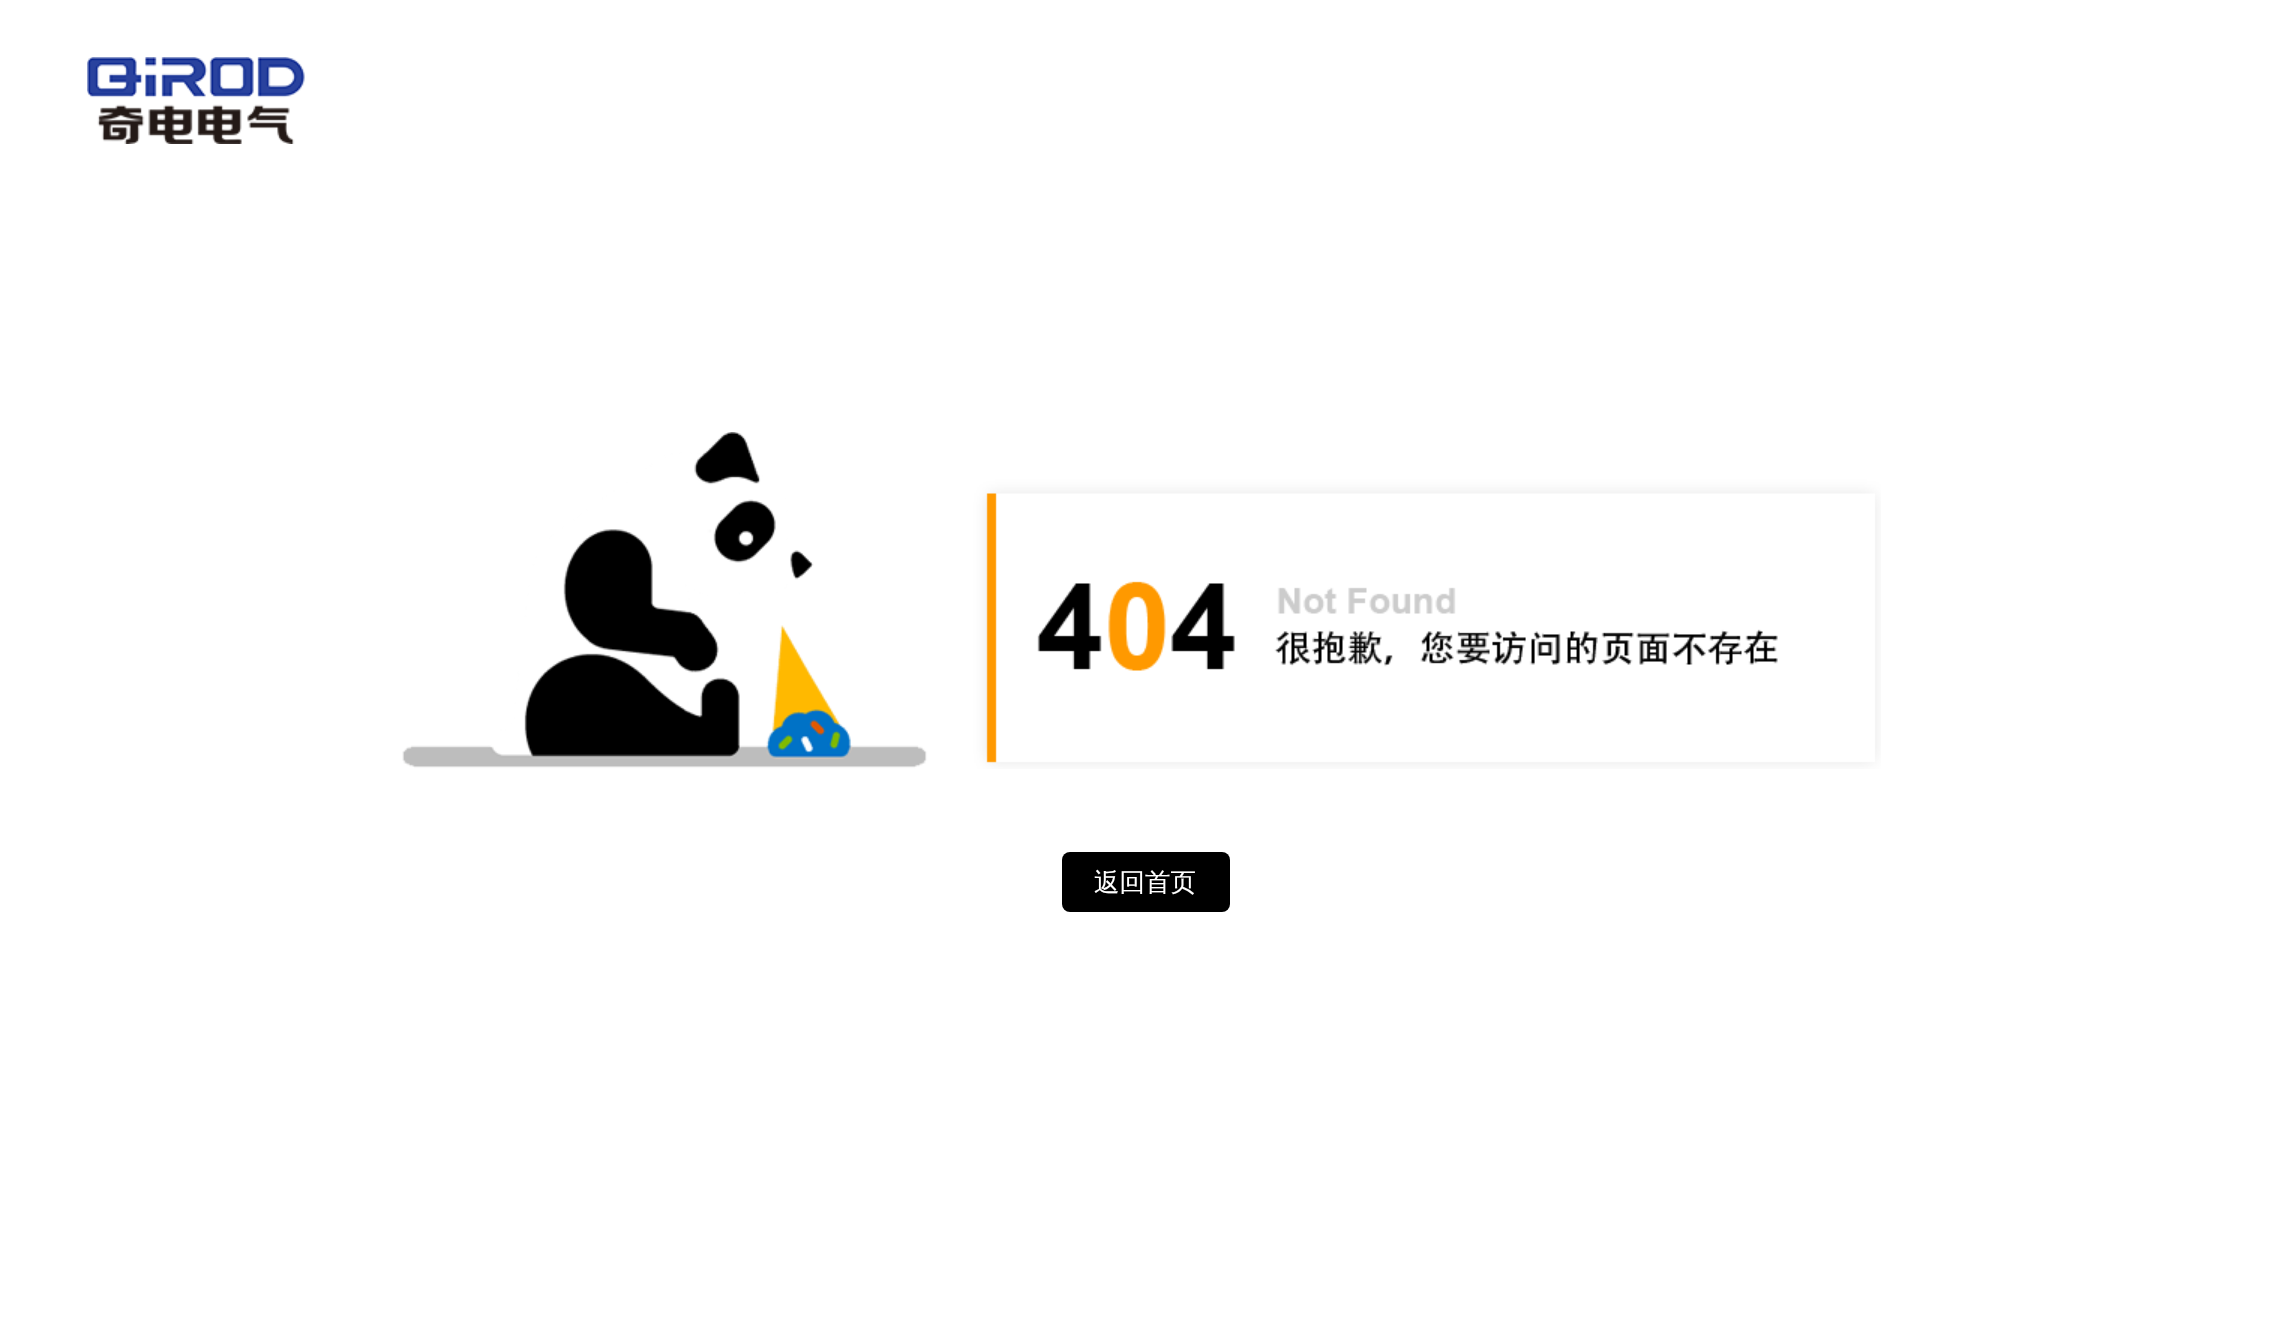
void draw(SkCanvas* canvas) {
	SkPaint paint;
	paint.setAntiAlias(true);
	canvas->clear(0xffffffff);
	canvas->drawImageRect(SkImages::DeferredFromEncodedData(SkData::MakeFromFileName("img1.png")), SkRect::MakeXYWH(87, 57, 218, 87), SkSamplingOptions());
	canvas->drawImageRect(SkImages::DeferredFromEncodedData(SkData::MakeFromFileName("img2.png")), SkRect::MakeXYWH(402, 432, 1479, 337), SkSamplingOptions());
	paint.setColor(0xff000000);
	canvas->drawRoundRect(SkRect::MakeXYWH(1062, 852, 168, 60), 8, 8, paint);
	SkFont f1(fontMgr->matchFamilyStyle("WenQuanYi Zen Hei", SkFontStyle(500, SkFontStyle::kNormal_Width, SkFontStyle::kUpright_Slant)), 25.5);
	f1.setSubpixel(true);
	paint.setColor(0xffffffff);
	canvas->drawString("返回首页", 1094, 891, f1, paint);
}
